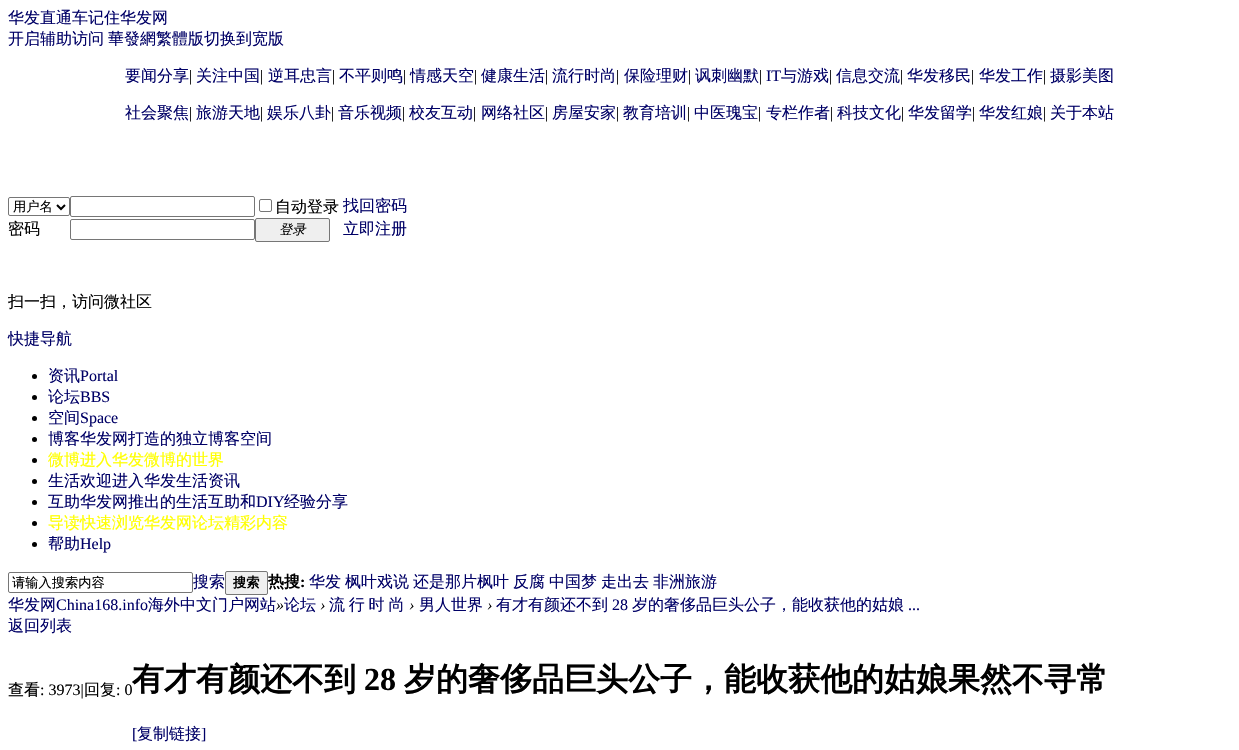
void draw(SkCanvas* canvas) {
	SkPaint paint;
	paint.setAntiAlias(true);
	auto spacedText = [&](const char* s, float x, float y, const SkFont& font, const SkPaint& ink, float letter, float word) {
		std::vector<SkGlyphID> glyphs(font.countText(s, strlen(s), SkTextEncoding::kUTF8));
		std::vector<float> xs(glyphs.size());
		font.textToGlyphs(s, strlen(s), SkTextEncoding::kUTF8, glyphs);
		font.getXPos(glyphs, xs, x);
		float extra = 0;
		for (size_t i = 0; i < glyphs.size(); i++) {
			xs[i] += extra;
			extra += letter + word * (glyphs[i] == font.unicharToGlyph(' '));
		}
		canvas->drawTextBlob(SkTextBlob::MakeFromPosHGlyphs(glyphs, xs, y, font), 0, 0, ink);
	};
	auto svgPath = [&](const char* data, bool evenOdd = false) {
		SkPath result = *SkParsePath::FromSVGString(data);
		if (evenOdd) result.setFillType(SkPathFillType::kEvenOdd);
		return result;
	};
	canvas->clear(0xffffffff);
	SkFont f1(fontMgr->matchFamilyStyle("WenQuanYi Zen Hei", SkFontStyle(500, SkFontStyle::kNormal_Width, SkFontStyle::kUpright_Slant)), 16);
	f1.setSubpixel(true);
	paint.setColor(0xff000066);
	canvas->drawString("华发直通车记住华发网", 8, 23, f1, paint);
	canvas->drawString("开启辅助访问", 8, 44, f1, paint);
	canvas->drawString("華發網繁體版切换到宽版", 108, 44, f1, paint);
	canvas->drawString("要闻分享", 125, 81, f1, paint);
	SkFont f2(fontMgr->matchFamilyStyle("Liberation Serif", SkFontStyle::Normal()), 16);
	f2.setSubpixel(true);
	paint.setColor(0xff000000);
	canvas->drawString("|", 189, 81, f2, paint);
	paint.setColor(0xff000066);
	canvas->drawString("关注中国", 196, 81, f1, paint);
	paint.setColor(0xff000000);
	canvas->drawString("|", 260, 81, f2, paint);
	paint.setColor(0xff000066);
	canvas->drawString("逆耳忠言", 268, 81, f1, paint);
	paint.setColor(0xff000000);
	canvas->drawString("|", 332, 81, f2, paint);
	paint.setColor(0xff000066);
	canvas->drawString("不平则鸣", 339, 81, f1, paint);
	paint.setColor(0xff000000);
	canvas->drawString("|", 403, 81, f2, paint);
	paint.setColor(0xff000066);
	canvas->drawString("情感天空", 410, 81, f1, paint);
	paint.setColor(0xff000000);
	canvas->drawString("|", 474, 81, f2, paint);
	paint.setColor(0xff000066);
	canvas->drawString("健康生活", 481, 81, f1, paint);
	paint.setColor(0xff000000);
	canvas->drawString("|", 545, 81, f2, paint);
	paint.setColor(0xff000066);
	canvas->drawString("流行时尚", 552, 81, f1, paint);
	paint.setColor(0xff000000);
	canvas->drawString("|", 616, 81, f2, paint);
	paint.setColor(0xff000066);
	canvas->drawString("保险理财", 624, 81, f1, paint);
	paint.setColor(0xff000000);
	canvas->drawString("|", 688, 81, f2, paint);
	paint.setColor(0xff000066);
	canvas->drawString("讽刺幽默", 695, 81, f1, paint);
	paint.setColor(0xff000000);
	canvas->drawString("|", 759, 81, f2, paint);
	paint.setColor(0xff000066);
	canvas->drawString("IT", 766, 81, f2, paint);
	canvas->drawString("与游戏", 781, 81, f1, paint);
	paint.setColor(0xff000000);
	canvas->drawString("|", 829, 81, f2, paint);
	paint.setColor(0xff000066);
	canvas->drawString("信息交流", 836, 81, f1, paint);
	paint.setColor(0xff000000);
	canvas->drawString("|", 900, 81, f2, paint);
	paint.setColor(0xff000066);
	canvas->drawString("华发移民", 907, 81, f1, paint);
	paint.setColor(0xff000000);
	canvas->drawString("|", 971, 81, f2, paint);
	paint.setColor(0xff000066);
	canvas->drawString("华发工作", 979, 81, f1, paint);
	paint.setColor(0xff000000);
	canvas->drawString("|", 1043, 81, f2, paint);
	paint.setColor(0xff000066);
	canvas->drawString("摄影美图", 1050, 81, f1, paint);
	canvas->drawString("社会聚焦", 125, 118, f1, paint);
	paint.setColor(0xff000000);
	canvas->drawString("|", 189, 118, f2, paint);
	paint.setColor(0xff000066);
	canvas->drawString("旅游天地", 196, 118, f1, paint);
	paint.setColor(0xff000000);
	canvas->drawString("|", 260, 118, f2, paint);
	paint.setColor(0xff000066);
	canvas->drawString("娱乐八卦", 267, 118, f1, paint);
	paint.setColor(0xff000000);
	canvas->drawString("|", 331, 118, f2, paint);
	paint.setColor(0xff000066);
	canvas->drawString("音乐视频", 338, 118, f1, paint);
	paint.setColor(0xff000000);
	canvas->drawString("|", 402, 118, f2, paint);
	paint.setColor(0xff000066);
	canvas->drawString("校友互动", 409, 118, f1, paint);
	paint.setColor(0xff000000);
	canvas->drawString("|", 473, 118, f2, paint);
	paint.setColor(0xff000066);
	canvas->drawString("网络社区", 481, 118, f1, paint);
	paint.setColor(0xff000000);
	canvas->drawString("|", 545, 118, f2, paint);
	paint.setColor(0xff000066);
	canvas->drawString("房屋安家", 552, 118, f1, paint);
	paint.setColor(0xff000000);
	canvas->drawString("|", 616, 118, f2, paint);
	paint.setColor(0xff000066);
	canvas->drawString("教育培训", 623, 118, f1, paint);
	paint.setColor(0xff000000);
	canvas->drawString("|", 687, 118, f2, paint);
	paint.setColor(0xff000066);
	canvas->drawString("中医瑰宝", 694, 118, f1, paint);
	paint.setColor(0xff000000);
	canvas->drawString("|", 758, 118, f2, paint);
	paint.setColor(0xff000066);
	canvas->drawString("专栏作者", 766, 118, f1, paint);
	paint.setColor(0xff000000);
	canvas->drawString("|", 830, 118, f2, paint);
	paint.setColor(0xff000066);
	canvas->drawString("科技文化", 837, 118, f1, paint);
	paint.setColor(0xff000000);
	canvas->drawString("|", 901, 118, f2, paint);
	paint.setColor(0xff000066);
	canvas->drawString("华发留学", 908, 118, f1, paint);
	paint.setColor(0xff000000);
	canvas->drawString("|", 972, 118, f2, paint);
	paint.setColor(0xff000066);
	canvas->drawString("华发红娘", 979, 118, f1, paint);
	paint.setColor(0xff000000);
	canvas->drawString("|", 1043, 118, f2, paint);
	paint.setColor(0xff000066);
	canvas->drawString("关于本站", 1050, 118, f1, paint);
	paint.setStroke(true);
	paint.setStrokeWidth(1);
	paint.setColor(0xff767676);
	canvas->drawRoundRect(SkRect::MakeXYWH(8.5, 197.5, 61, 18), 1.5, 1.5, paint);
	paint.setStrokeWidth(2);
	paint.setColor(0xff000000);
	canvas->drawPath(svgPath("M57 205L61 209L65 205"), paint);
	SkFont f3(fontMgr->matchFamilyStyle("WenQuanYi Zen Hei", SkFontStyle(500, SkFontStyle::kNormal_Width, SkFontStyle::kUpright_Slant)), 13.25);
	f3.setSubpixel(true);
	paint.setStroke(false);
	canvas->drawString("用户名", 13, 211, f3, paint);
	paint.setStroke(true);
	paint.setStrokeWidth(1);
	paint.setColor(0xff767676);
	canvas->drawRoundRect(SkRect::MakeXYWH(70.5, 196.5, 184, 20), 1.5, 1.5, paint);
	canvas->drawRoundRect(SkRect::MakeXYWH(259.5, 199.5, 12, 12), 1.5, 1.5, paint);
	paint.setStroke(false);
	paint.setColor(0xff000000);
	canvas->drawString("自动登录", 275, 212, f1, paint);
	paint.setColor(0xff000066);
	canvas->drawString("找回密码", 343, 211, f1, paint);
	paint.setColor(0xff000000);
	canvas->drawString("密码", 8, 234, f1, paint);
	paint.setStroke(true);
	paint.setColor(0xff767676);
	canvas->drawRoundRect(SkRect::MakeXYWH(70.5, 219.5, 184, 20), 1.5, 1.5, paint);
	paint.setStroke(false);
	paint.setColor(0xffefefef);
	canvas->drawRoundRect(SkRect::MakeXYWH(255.5, 218.5, 74, 23), 1.5, 1.5, paint);
	paint.setStroke(true);
	paint.setColor(0xff767676);
	canvas->drawRoundRect(SkRect::MakeXYWH(255.5, 218.5, 74, 23), 1.5, 1.5, paint);
	SkFont f4(fontMgr->matchFamilyStyle("WenQuanYi Zen Hei", SkFontStyle(500, SkFontStyle::kNormal_Width, SkFontStyle::kItalic_Slant)), 13.25);
	f4.setSubpixel(true);
	paint.setStroke(false);
	paint.setColor(0xff000000);
	canvas->drawString("登录", 279, 234, f4, paint);
	paint.setColor(0xff000066);
	canvas->drawString("立即注册", 343, 234, f1, paint);
	paint.setColor(0xff000000);
	canvas->drawString("扫一扫，访问微社区", 8, 307, f1, paint);
	paint.setColor(0xff000066);
	canvas->drawString("快捷导航", 8, 344, f1, paint);
	paint.setColor(0xff000000);
	canvas->drawCircle(34.5, 376.5, 2.5, paint);
	paint.setColor(0xff000066);
	canvas->drawString("资讯", 48, 381, f1, paint);
	canvas->drawString("Portal", 80, 381, f2, paint);
	paint.setColor(0xff000000);
	canvas->drawCircle(34.5, 397.5, 2.5, paint);
	paint.setColor(0xff000066);
	canvas->drawString("论坛", 48, 402, f1, paint);
	canvas->drawString("BBS", 80, 402, f2, paint);
	paint.setColor(0xff000000);
	canvas->drawCircle(34.5, 418.5, 2.5, paint);
	paint.setColor(0xff000066);
	canvas->drawString("空间", 48, 423, f1, paint);
	canvas->drawString("Space", 80, 423, f2, paint);
	paint.setColor(0xff000000);
	canvas->drawCircle(34.5, 439.5, 2.5, paint);
	paint.setColor(0xff000066);
	canvas->drawString("博客华发网打造的独立博客空间", 48, 444, f1, paint);
	paint.setColor(0xff000000);
	canvas->drawCircle(34.5, 460.5, 2.5, paint);
	paint.setColor(0xffffff00);
	canvas->drawString("微博进入华发微博的世界", 48, 465, f1, paint);
	paint.setColor(0xff000000);
	canvas->drawCircle(34.5, 481.5, 2.5, paint);
	paint.setColor(0xff000066);
	canvas->drawString("生活欢迎进入华发生活资讯", 48, 486, f1, paint);
	paint.setColor(0xff000000);
	canvas->drawCircle(34.5, 502.5, 2.5, paint);
	paint.setColor(0xff000066);
	canvas->drawString("互助华发网推出的生活互助和", 48, 507, f1, paint);
	canvas->drawString("DIY", 256, 507, f2, paint);
	canvas->drawString("经验分享", 284, 507, f1, paint);
	paint.setColor(0xff000000);
	canvas->drawCircle(34.5, 523.5, 2.5, paint);
	paint.setColor(0xffffff00);
	canvas->drawString("导读快速浏览华发网论坛精彩内容", 48, 528, f1, paint);
	paint.setColor(0xff000000);
	canvas->drawCircle(34.5, 544.5, 2.5, paint);
	paint.setColor(0xff000066);
	canvas->drawString("帮助", 48, 549, f1, paint);
	canvas->drawString("Help", 80, 549, f2, paint);
	paint.setStroke(true);
	paint.setColor(0xff767676);
	canvas->drawRoundRect(SkRect::MakeXYWH(8.5, 572.5, 184, 20), 1.5, 1.5, paint);
	paint.setStroke(false);
	paint.setColor(0xff000000);
	canvas->drawString("请输入搜索内容", 12, 587, f3, paint);
	paint.setColor(0xff000066);
	canvas->drawString("搜索", 193, 587, f1, paint);
	paint.setColor(0xffefefef);
	canvas->drawRoundRect(SkRect::MakeXYWH(225.5, 571.5, 42, 23), 1.5, 1.5, paint);
	paint.setStroke(true);
	paint.setColor(0xff767676);
	canvas->drawRoundRect(SkRect::MakeXYWH(225.5, 571.5, 42, 23), 1.5, 1.5, paint);
	SkFont f5(fontMgr->matchFamilyStyle("WenQuanYi Zen Hei", SkFontStyle::Bold()), 13.25);
	f5.setSubpixel(true);
	paint.setStroke(false);
	paint.setColor(0xff000000);
	canvas->drawString("搜索", 233, 587, f5, paint);
	SkFont f6(fontMgr->matchFamilyStyle("WenQuanYi Zen Hei", SkFontStyle::Bold()), 16);
	f6.setSubpixel(true);
	canvas->drawString("热搜", 268, 587, f6, paint);
	SkFont f7(fontMgr->matchFamilyStyle("Liberation Serif", SkFontStyle::Bold()), 16);
	f7.setSubpixel(true);
	canvas->drawString(":", 300, 587, f7, paint);
	paint.setColor(0xff000066);
	canvas->drawString("华发", 309, 587, f1, paint);
	canvas->drawString("枫叶戏说", 345, 587, f1, paint);
	canvas->drawString("还是那片枫叶", 413, 587, f1, paint);
	canvas->drawString("反腐", 513, 587, f1, paint);
	canvas->drawString("中国梦", 549, 587, f1, paint);
	canvas->drawString("走出去", 601, 587, f1, paint);
	canvas->drawString("非洲旅游", 653, 587, f1, paint);
	canvas->drawString("华发网", 8, 610, f1, paint);
	canvas->drawString("China168.info", 56, 610, f2, paint);
	canvas->drawString("海外中文门户网站", 148, 610, f1, paint);
	SkFont f8(fontMgr->matchFamilyStyle("Liberation Serif", SkFontStyle::Italic()), 16);
	f8.setSubpixel(true);
	paint.setColor(0xff000000);
	canvas->drawString("»", 276, 610, f8, paint);
	paint.setColor(0xff000066);
	canvas->drawString("论坛", 284, 610, f1, paint);
	paint.setColor(0xff000000);
	canvas->drawString("›", 320, 610, f8, paint);
	paint.setColor(0xff000066);
	spacedText("流 行 时 尚", 329, 610, f1, paint, 0, -1);
	paint.setColor(0xff000000);
	canvas->drawString("›", 409, 610, f8, paint);
	paint.setColor(0xff000066);
	canvas->drawString("男人世界", 419, 610, f1, paint);
	paint.setColor(0xff000000);
	canvas->drawString("›", 487, 610, f8, paint);
	paint.setColor(0xff000066);
	canvas->drawString("有才有颜还不到", 496, 610, f1, paint);
	canvas->drawString("28", 612, 610, f2, paint);
	canvas->drawString("岁的奢侈品巨头公子，能收获他的姑娘", 632, 610, f1, paint);
	canvas->drawString("...", 908, 610, f2, paint);
	canvas->drawString("返回列表", 8, 631, f1, paint);
	paint.setColor(0xff000000);
	canvas->drawString("查看", 8, 695, f1, paint);
	canvas->drawString(": 3973|", 40, 695, f2, paint);
	canvas->drawString("回复", 84, 695, f1, paint);
	canvas->drawString(": 0", 116, 695, f2, paint);
	SkFont f9(fontMgr->matchFamilyStyle("WenQuanYi Zen Hei", SkFontStyle::Bold()), 32);
	f9.setSubpixel(true);
	canvas->drawString("有才有颜还不到", 132, 690, f9, paint);
	SkFont f10(fontMgr->matchFamilyStyle("Liberation Serif", SkFontStyle::Bold()), 32);
	f10.setSubpixel(true);
	canvas->drawString("28", 364, 690, f10, paint);
	canvas->drawString("岁的奢侈品巨头公子，能收获他的姑娘果然不寻常", 404, 690, f9, paint);
	paint.setColor(0xff000066);
	canvas->drawString("[", 132, 739, f2, paint);
	canvas->drawString("复制链接", 137, 739, f1, paint);
	canvas->drawString("]", 201, 739, f2, paint);
}
